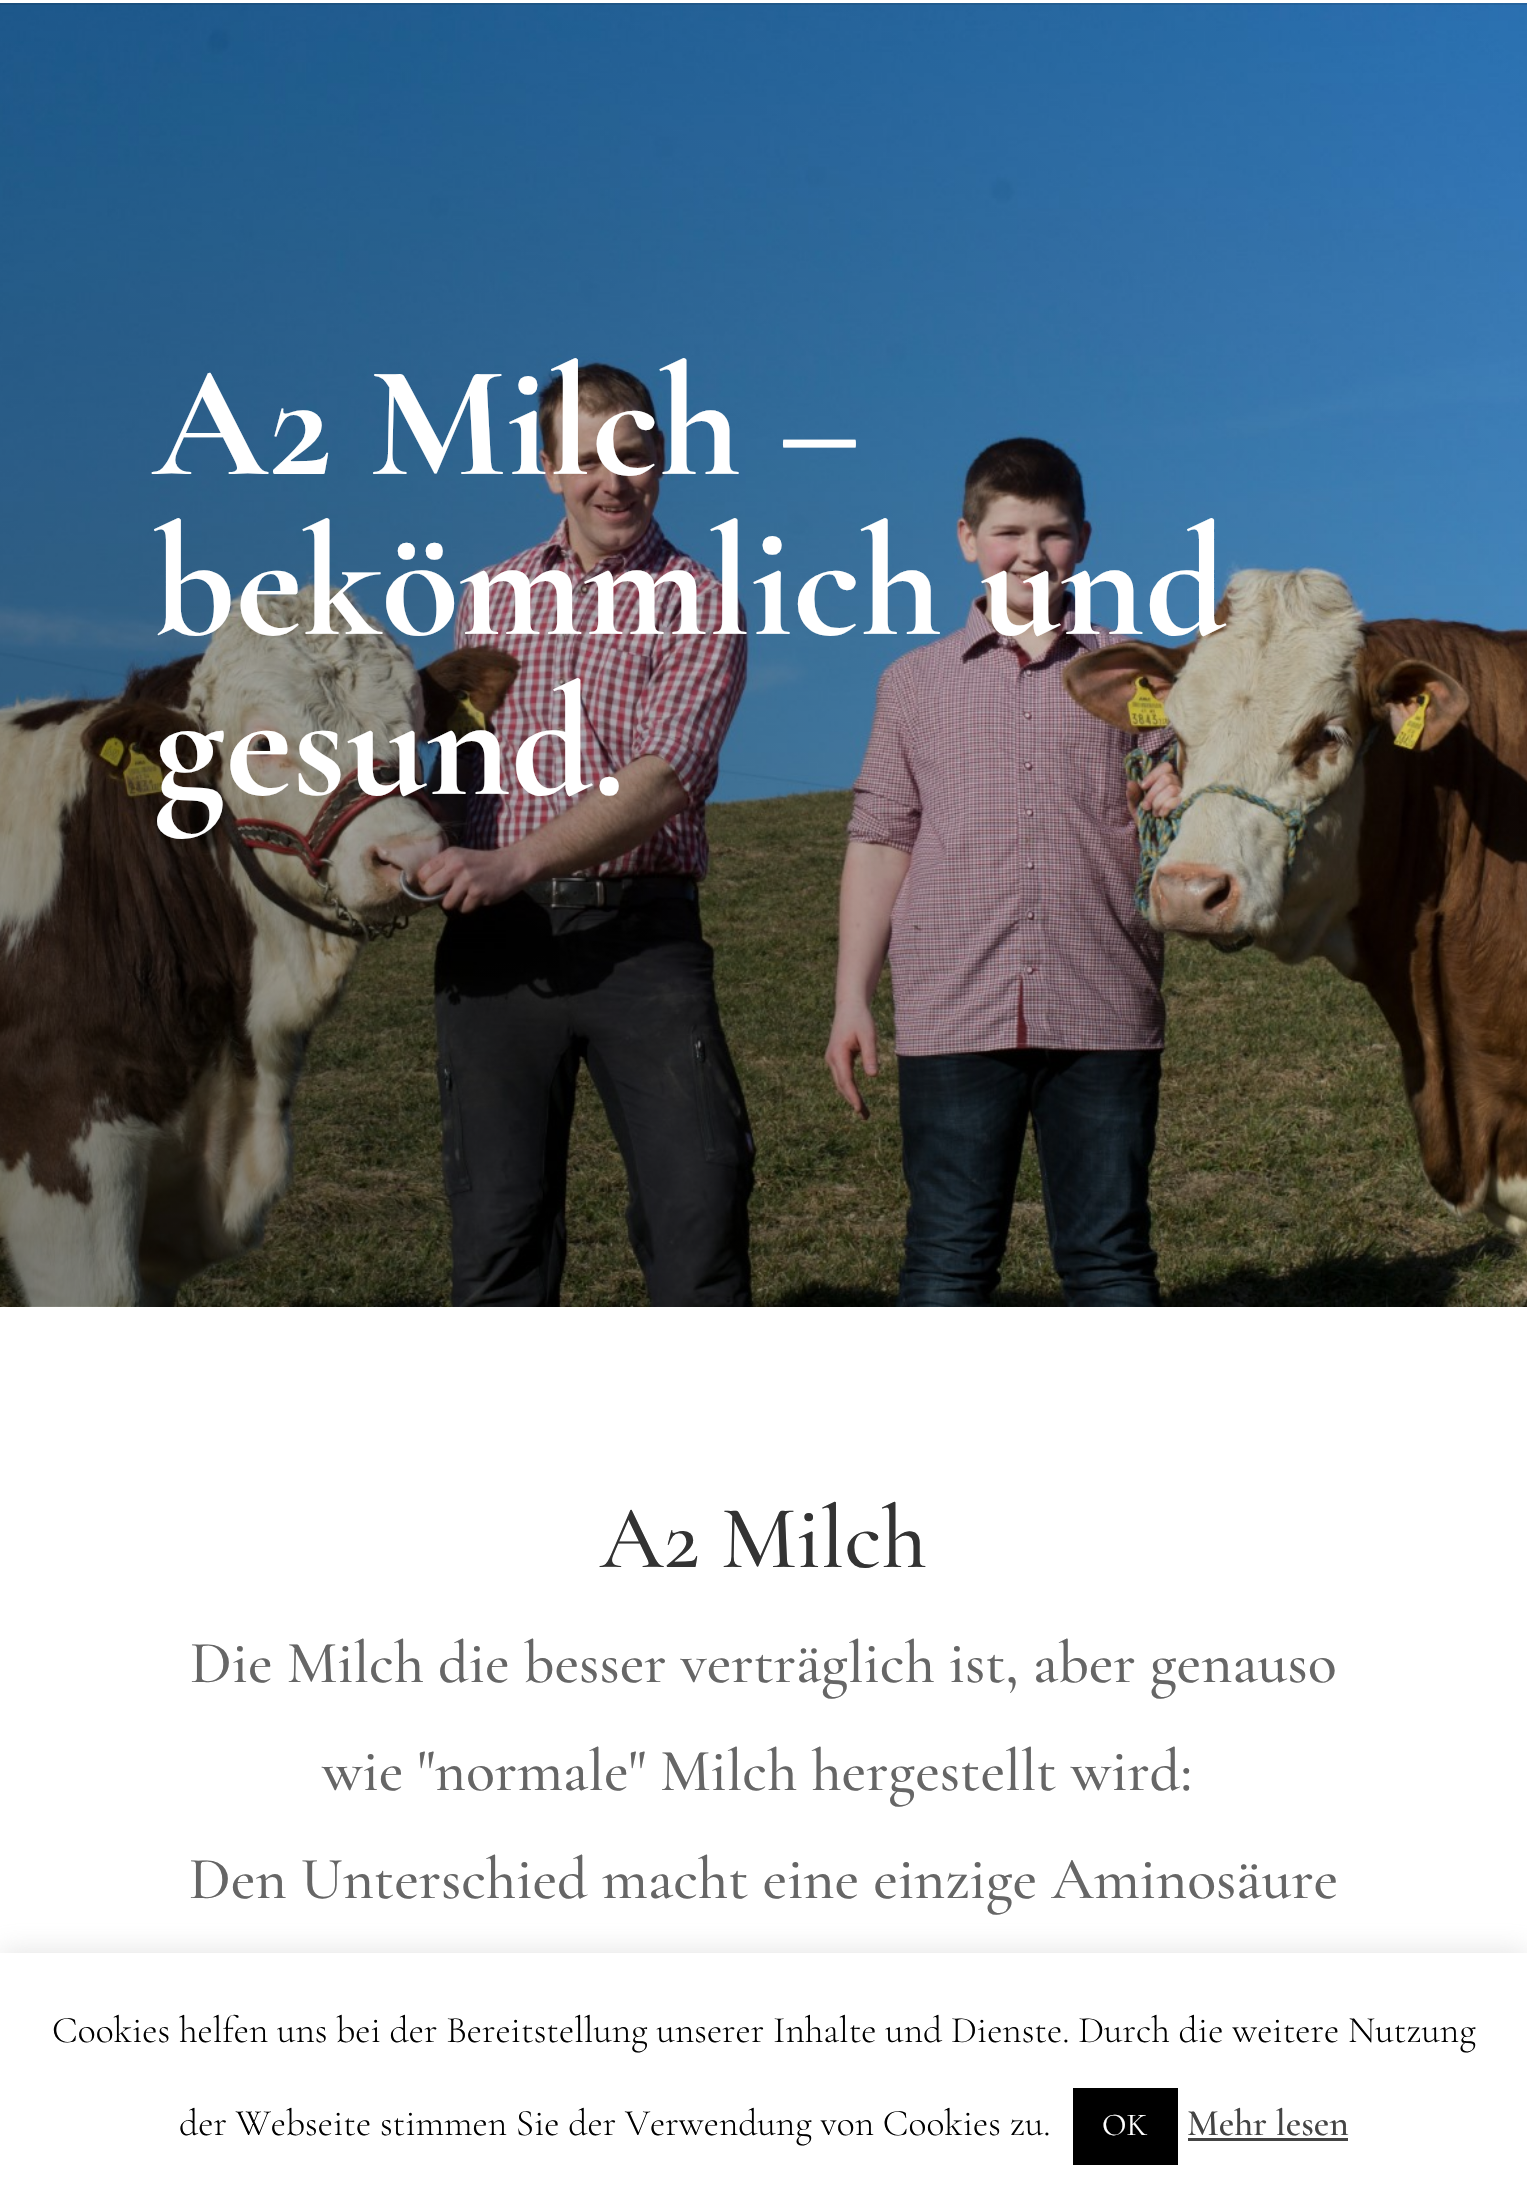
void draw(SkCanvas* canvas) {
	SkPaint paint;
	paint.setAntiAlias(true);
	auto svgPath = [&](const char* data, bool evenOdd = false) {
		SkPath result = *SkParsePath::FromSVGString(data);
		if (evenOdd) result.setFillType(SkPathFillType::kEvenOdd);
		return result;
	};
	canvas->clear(0xffffffff);
	canvas->drawImageRect(SkImages::DeferredFromEncodedData(SkData::MakeFromFileName("img1.png")), SkRect::MakeXYWH(0, 3, 1527, 1304), SkSamplingOptions());
	paint.setColor(0x1a000000);
	canvas->drawPath(svgPath("M0 2V5H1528V-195V2Z"), paint);
	paint.setColor(0xffffffff);
	canvas->drawRect(SkRect::MakeXYWH(0, 2, 1527, 1), paint);
	SkFont f1(fontMgr->matchFamilyStyle("Cormorant Garamond", SkFontStyle::Bold()), 160);
	f1.setSubpixel(true);
	canvas->drawString("A2 Milch –", 153, 474, f1, paint);
	canvas->drawString("bekömmlich und", 153, 634, f1, paint);
	canvas->drawString("gesund.", 153, 794, f1, paint);
	SkFont f2(fontMgr->matchFamilyStyle("Cormorant Garamond", SkFontStyle(500, SkFontStyle::kNormal_Width, SkFontStyle::kUpright_Slant)), 90);
	f2.setSubpixel(true);
	paint.setColor(0xff333333);
	canvas->drawString("A2 Milch", 600, 1567, f2, paint);
	SkFont f3(fontMgr->matchFamilyStyle("Cormorant Garamond", SkFontStyle(500, SkFontStyle::kNormal_Width, SkFontStyle::kUpright_Slant)), 60);
	f3.setSubpixel(true);
	paint.setColor(0xff666666);
	canvas->drawString("Die Milch die besser verträglich ist, aber genauso", 190, 1682, f3, paint);
	canvas->drawString("wie \"normale\" Milch hergestellt wird:", 322, 1790, f3, paint);
	canvas->drawString("Den Unterschied macht eine einzige Aminosäure", 189, 1898, f3, paint);
	paint.setColor(0x4dacabab);
	paint.setMaskFilter(SkMaskFilter::MakeBlur(kNormal_SkBlurStyle, 12.5));
	canvas->drawRect(SkRect::MakeXYWH(0, 1950, 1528, 243), paint);
	paint.setMaskFilter(nullptr);
	paint.setColor(0xffffffff);
	canvas->drawRect(SkRect::MakeXYWH(0, 1953, 1527, 241), paint);
	SkFont f4(fontMgr->matchFamilyStyle("Cormorant Garamond", SkFontStyle(300, SkFontStyle::kNormal_Width, SkFontStyle::kUpright_Slant)), 37.5);
	f4.setSubpixel(true);
	paint.setColor(0xff000000);
	canvas->drawString("Cookies helfen uns bei der Bereitstellung unserer Inhalte und Dienste. Durch die weitere Nutzung", 52, 2042, f4, paint);
	canvas->drawString("der Webseite stimmen Sie der Verwendung von Cookies zu.", 179, 2135, f4, paint);
	canvas->drawRect(SkRect::MakeXYWH(1073, 2088, 105, 77), paint);
	SkFont f5(fontMgr->matchFamilyStyle("Cormorant Garamond", SkFontStyle::Normal()), 32);
	f5.setSubpixel(true);
	paint.setColor(0xffffffff);
	canvas->drawString("OK", 1102, 2135, f5, paint);
	SkFont f6(fontMgr->matchFamilyStyle("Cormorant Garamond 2", SkFontStyle(500, SkFontStyle::kNormal_Width, SkFontStyle::kUpright_Slant)), 37.5);
	f6.setSubpixel(true);
	paint.setColor(0xff444444);
	canvas->drawString("Mehr lesen", 1187, 2135, f6, paint);
	canvas->drawRect(SkRect::MakeXYWH(1188, 2138, 160, 3), paint);
}
